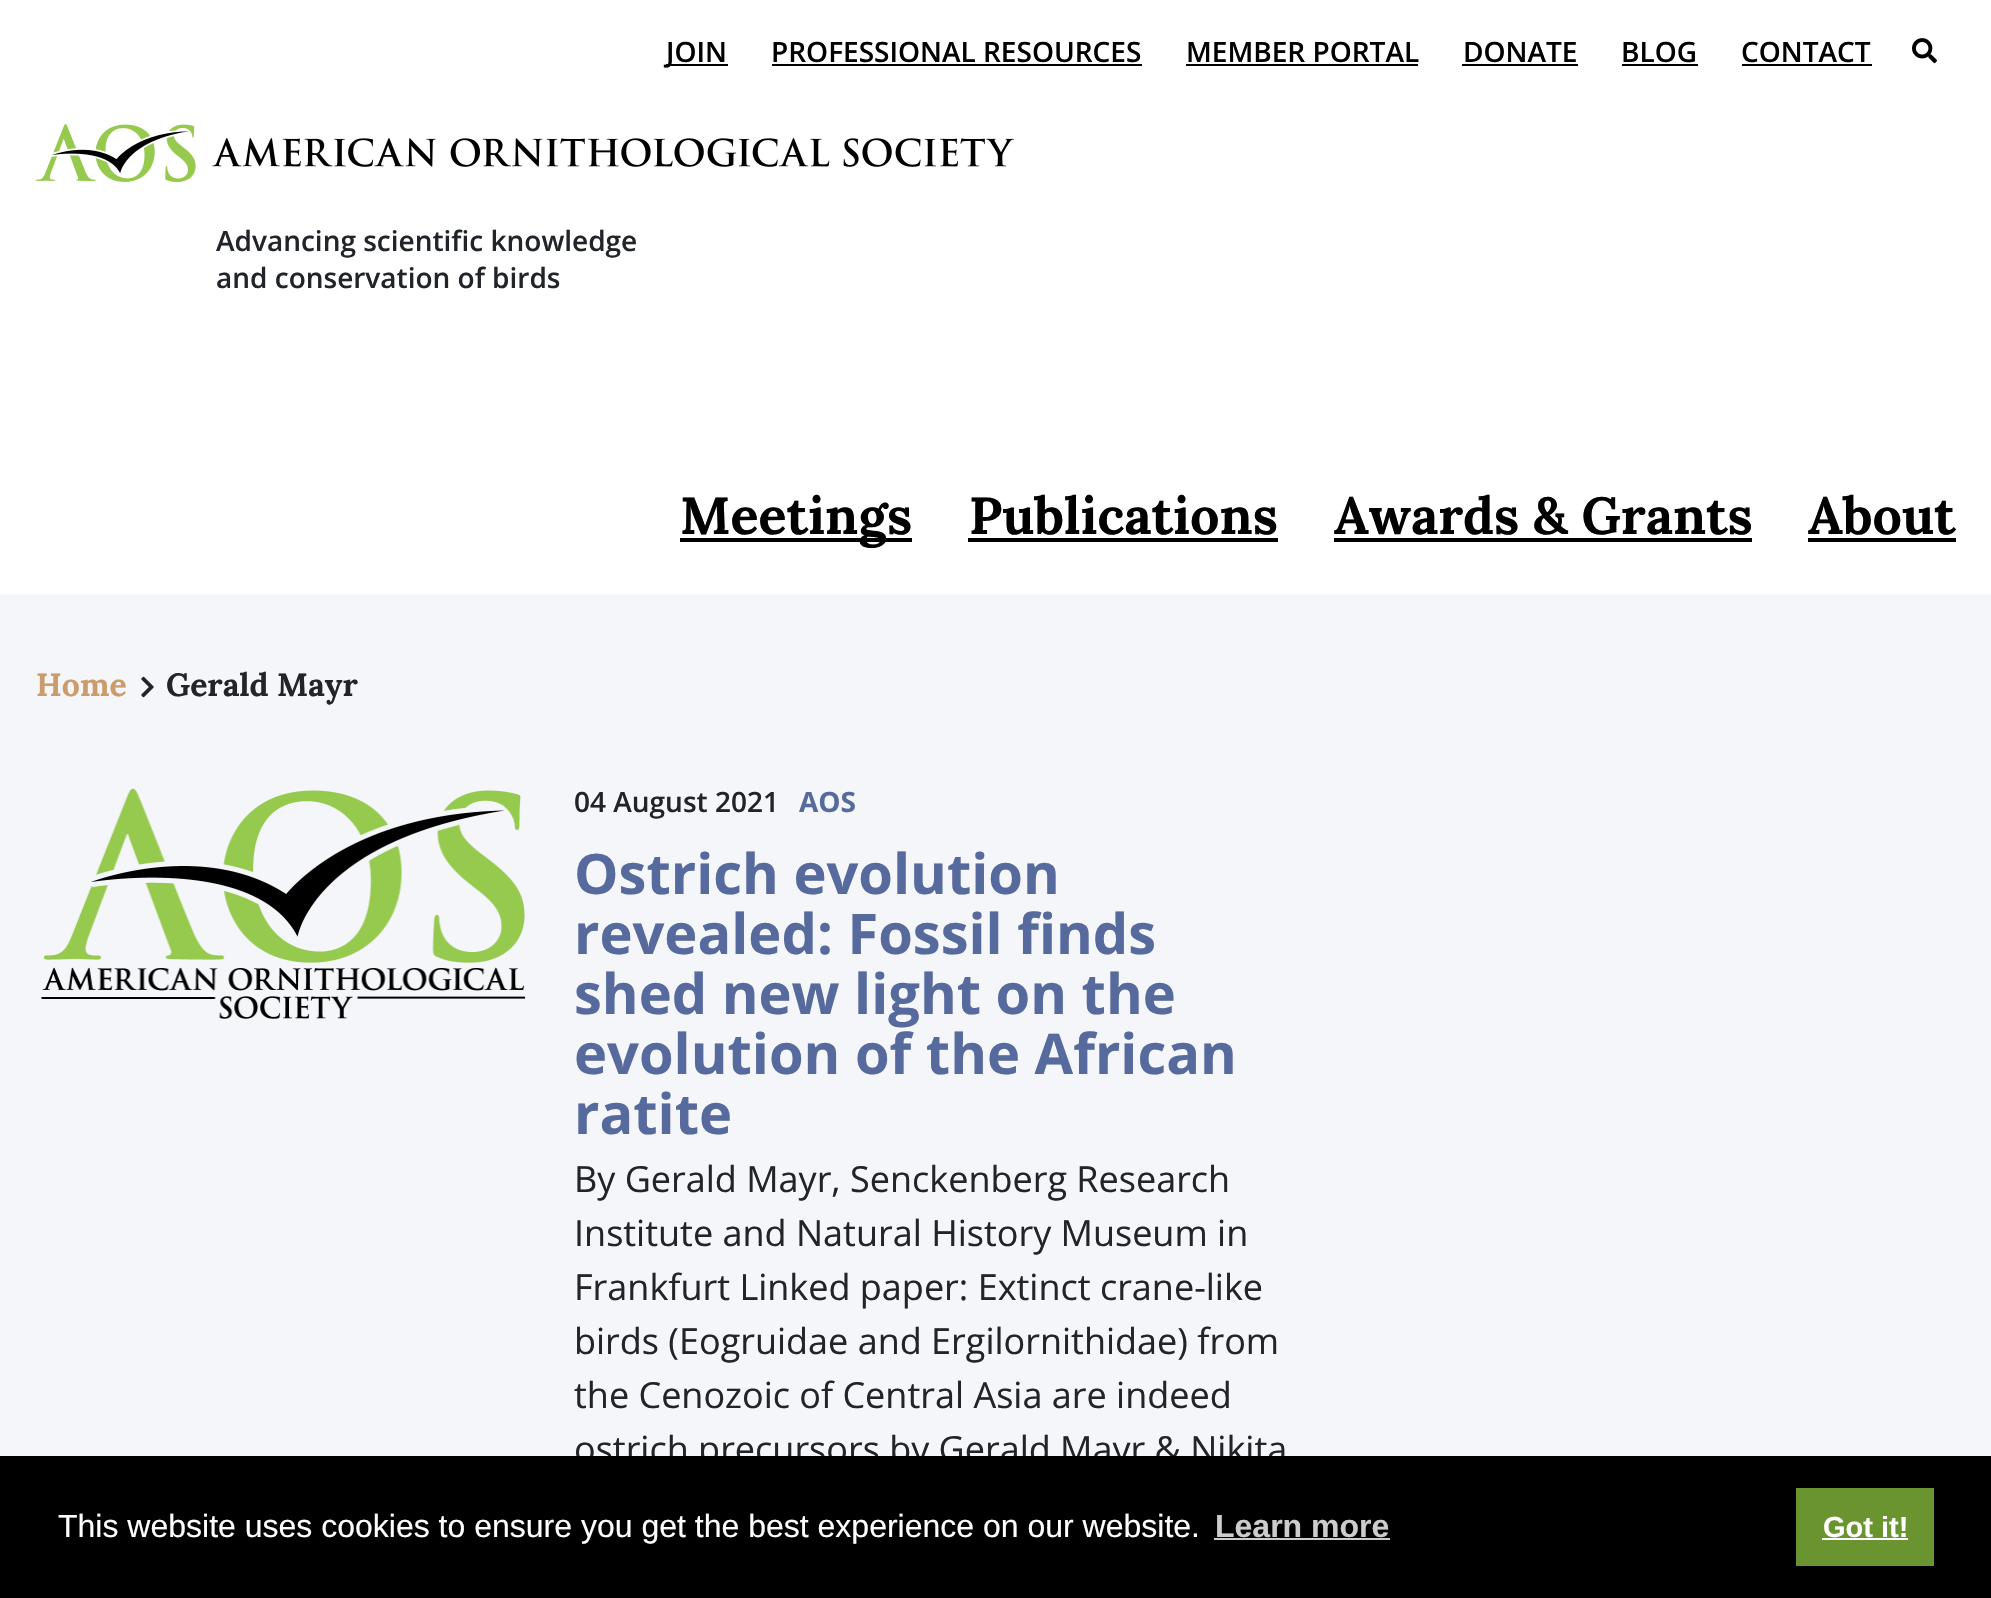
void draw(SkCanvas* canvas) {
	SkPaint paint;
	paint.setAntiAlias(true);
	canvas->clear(0xfff5f6fa);
	paint.setColor(0xffffffff);
	canvas->drawRect(SkRect::MakeXYWH(0, 0, 1991, 594), paint);
	paint.setColor(0xff000000);
	canvas->drawRect(SkRect::MakeXYWH(666, 64, 62, 2), paint);
	SkFont f1(fontMgr->matchFamilyStyle("Open Sans", SkFontStyle(600, SkFontStyle::kNormal_Width, SkFontStyle::kUpright_Slant)), 28);
	f1.setSubpixel(true);
	canvas->drawString("JOIN", 666, 62, f1, paint);
	canvas->drawString("PROFESSIONAL RESOURCES", 771, 62, f1, paint);
	canvas->drawRect(SkRect::MakeXYWH(772, 64, 370, 2), paint);
	canvas->drawString("MEMBER PORTAL", 1186, 62, f1, paint);
	canvas->drawRect(SkRect::MakeXYWH(1186, 64, 232, 2), paint);
	canvas->drawString("DONATE", 1463, 62, f1, paint);
	canvas->drawRect(SkRect::MakeXYWH(1462, 64, 116, 2), paint);
	canvas->drawString("BLOG", 1621, 62, f1, paint);
	canvas->drawRect(SkRect::MakeXYWH(1622, 64, 76, 2), paint);
	canvas->drawString("CONTACT", 1741, 62, f1, paint);
	canvas->drawRect(SkRect::MakeXYWH(1742, 64, 130, 2), paint);
	canvas->drawImageRect(SkImages::DeferredFromEncodedData(SkData::MakeFromFileName("img1.png")), SkRect::MakeXYWH(1912, 38, 25, 26), SkSamplingOptions());
	canvas->drawImageRect(SkImages::DeferredFromEncodedData(SkData::MakeFromFileName("img2.png")), SkRect::MakeXYWH(36, 124, 978, 58), SkSamplingOptions());
	paint.setColor(0xff212529);
	canvas->drawString("Advancing scientific knowledge", 216, 251, f1, paint);
	canvas->drawString("and conservation of birds", 216, 288, f1, paint);
	paint.setColor(0xff000000);
	canvas->drawRect(SkRect::MakeXYWH(680, 538, 232, 4), paint);
	SkFont f2(fontMgr->matchFamilyStyle("Lora", SkFontStyle::Bold()), 52);
	f2.setSubpixel(true);
	canvas->drawString("Meetings", 680, 534, f2, paint);
	canvas->drawString("Publications", 969, 534, f2, paint);
	canvas->drawRect(SkRect::MakeXYWH(968, 538, 310, 4), paint);
	canvas->drawString("Awards & Grants", 1334, 534, f2, paint);
	canvas->drawRect(SkRect::MakeXYWH(1334, 538, 418, 4), paint);
	canvas->drawString("About", 1808, 534, f2, paint);
	canvas->drawRect(SkRect::MakeXYWH(1808, 538, 148, 4), paint);
	SkFont f3(fontMgr->matchFamilyStyle("Lora", SkFontStyle::Bold()), 32);
	f3.setSubpixel(true);
	paint.setColor(0xffcb9b6c);
	canvas->drawString("Home", 36, 696, f3, paint);
	canvas->drawImageRect(SkImages::DeferredFromEncodedData(SkData::MakeFromFileName("img3.png")), SkRect::MakeXYWH(141, 676, 13, 22), SkSamplingOptions());
	paint.setColor(0xff212529);
	canvas->drawString("Gerald Mayr", 166, 696, f3, paint);
	canvas->drawImageRect(SkImages::DeferredFromEncodedData(SkData::MakeFromFileName("img4.png")), SkRect::MakeXYWH(41, 788, 485, 231), SkSamplingOptions());
	canvas->drawString("04 August 2021", 574, 812, f1, paint);
	SkFont f4(fontMgr->matchFamilyStyle("Open Sans", SkFontStyle::Bold()), 28);
	f4.setSubpixel(true);
	paint.setColor(0xff566a9d);
	canvas->drawString("AOS", 799, 812, f4, paint);
	SkFont f5(fontMgr->matchFamilyStyle("Open Sans", SkFontStyle::Bold()), 56);
	f5.setSubpixel(true);
	canvas->drawString("Ostrich evolution", 574, 894, f5, paint);
	canvas->drawString("revealed: Fossil finds", 574, 954, f5, paint);
	canvas->drawString("shed new light on the", 574, 1014, f5, paint);
	canvas->drawString("evolution of the African", 574, 1074, f5, paint);
	canvas->drawString("ratite", 574, 1134, f5, paint);
	SkFont f6(fontMgr->matchFamilyStyle("Open Sans", SkFontStyle::Normal()), 36);
	f6.setSubpixel(true);
	paint.setColor(0xff212529);
	canvas->drawString("By Gerald Mayr, Senckenberg Research", 574, 1192, f6, paint);
	canvas->drawString("Institute and Natural History Museum in", 574, 1246, f6, paint);
	canvas->drawString("Frankfurt Linked paper: Extinct crane-like", 574, 1300, f6, paint);
	canvas->drawString("birds (Eogruidae and Ergilornithidae) from", 574, 1354, f6, paint);
	canvas->drawString("the Cenozoic of Central Asia are indeed", 574, 1408, f6, paint);
	canvas->drawString("ostrich precursors by Gerald Mayr & Nikita", 574, 1462, f6, paint);
	paint.setColor(0xff000000);
	canvas->drawRect(SkRect::MakeXYWH(0, 1456, 1991, 142), paint);
	SkFont f7(fontMgr->matchFamilyStyle("Liberation Sans", SkFontStyle::Normal()), 32);
	f7.setSubpixel(true);
	paint.setColor(0xffffffff);
	canvas->drawString("This website uses cookies to ensure you get the best experience on our website.", 58, 1537, f7, paint);
	SkFont f8(fontMgr->matchFamilyStyle("Liberation Sans", SkFontStyle::Bold()), 32);
	f8.setSubpixel(true);
	paint.setColor(0xffcccccc);
	canvas->drawString("Learn more", 1215, 1537, f8, paint);
	canvas->drawRect(SkRect::MakeXYWH(1214, 1538, 176, 2), paint);
	paint.setColor(0xff699430);
	canvas->drawRect(SkRect::MakeXYWH(1796, 1488, 138, 78), paint);
	SkFont f9(fontMgr->matchFamilyStyle("Liberation Sans", SkFontStyle::Bold()), 29);
	f9.setSubpixel(true);
	paint.setColor(0xffffffff);
	canvas->drawString("Got it!", 1823, 1537, f9, paint);
	canvas->drawRect(SkRect::MakeXYWH(1822, 1538, 86, 2), paint);
}
